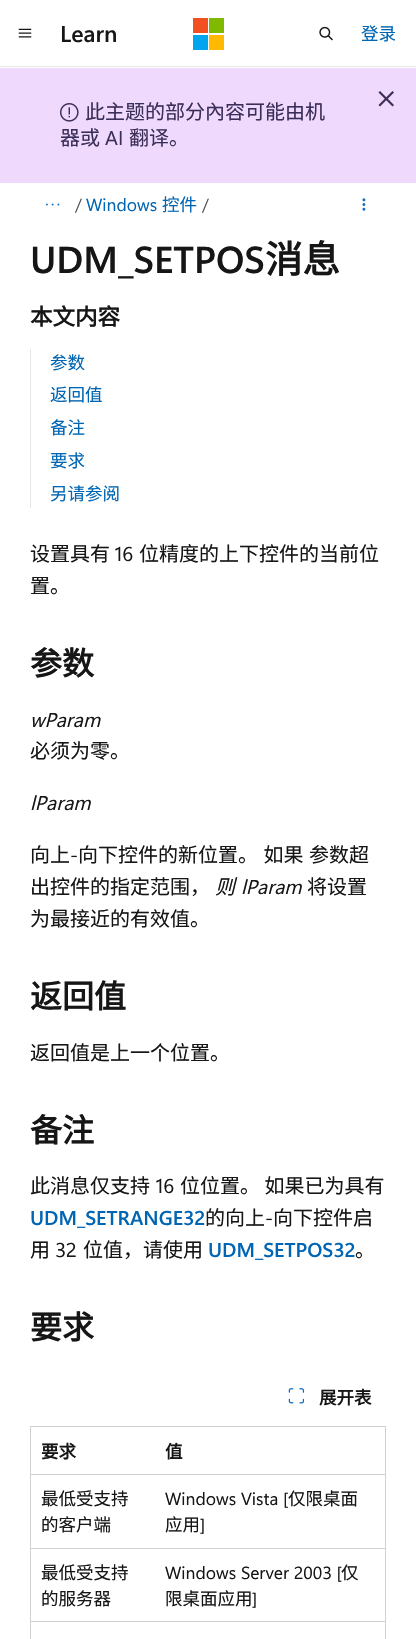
void draw(SkCanvas* canvas) {
	SkPaint paint;
	paint.setAntiAlias(true);
	auto spacedText = [&](const char* s, float x, float y, const SkFont& font, const SkPaint& ink, float letter, float word) {
		std::vector<SkGlyphID> glyphs(font.countText(s, strlen(s), SkTextEncoding::kUTF8));
		std::vector<float> xs(glyphs.size());
		font.textToGlyphs(s, strlen(s), SkTextEncoding::kUTF8, glyphs);
		font.getXPos(glyphs, xs, x);
		float extra = 0;
		for (size_t i = 0; i < glyphs.size(); i++) {
			xs[i] += extra;
			extra += letter + word * (glyphs[i] == font.unicharToGlyph(' '));
		}
		canvas->drawTextBlob(SkTextBlob::MakeFromPosHGlyphs(glyphs, xs, y, font), 0, 0, ink);
	};
	auto svgPath = [&](const char* data, bool evenOdd = false) {
		SkPath result = *SkParsePath::FromSVGString(data);
		if (evenOdd) result.setFillType(SkPathFillType::kEvenOdd);
		return result;
	};
	canvas->clear(0xffffffff);
	paint.setColor(0xffe6e6e6);
	canvas->drawRect(SkRect::MakeXYWH(0, 66, 416, 1), paint);
	canvas->drawImageRect(SkImages::DeferredFromEncodedData(SkData::MakeFromFileName("img1.png")), SkRect::MakeXYWH(18, 28, 14, 10), SkSamplingOptions());
	SkFont f1(fontMgr->matchFamilyStyle("Segoe UI", SkFontStyle(600, SkFontStyle::kNormal_Width, SkFontStyle::kUpright_Slant)), 23);
	f1.setSubpixel(true);
	paint.setColor(0xff161616);
	canvas->drawString("Learn", 60, 42, f1, paint);
	paint.setColor(0xfff25022);
	canvas->drawRect(SkRect::MakeXYWH(193, 18, 15, 15), paint);
	paint.setColor(0xff7fba00);
	canvas->drawRect(SkRect::MakeXYWH(209, 18, 15, 15), paint);
	paint.setColor(0xff00a4ef);
	canvas->drawRect(SkRect::MakeXYWH(193, 35, 15, 15), paint);
	paint.setColor(0xffffb900);
	canvas->drawRect(SkRect::MakeXYWH(209, 35, 15, 15), paint);
	canvas->drawImageRect(SkImages::DeferredFromEncodedData(SkData::MakeFromFileName("img2.png")), SkRect::MakeXYWH(319, 26, 14, 15), SkSamplingOptions());
	SkFont f2(fontMgr->matchFamilyStyle("Noto Sans CJK SC", SkFontStyle::Normal()), 17.5);
	f2.setSubpixel(true);
	paint.setColor(0xff0065b3);
	canvas->drawString("登录", 361, 40, f2, paint);
	paint.setColor(0xffefd9fd);
	canvas->drawRect(SkRect::MakeXYWH(0, 68, 416, 115), paint);
	paint.setColor(0xff3b2e58);
	canvas->drawPath(svgPath("M380 91L394 105L392.5 106.5L378.5 92.5Z"), paint);
	canvas->drawPath(svgPath("M392.5 91L394 92.5L380 106.5L378.5 105Z"), paint);
	canvas->drawImageRect(SkImages::DeferredFromEncodedData(SkData::MakeFromFileName("img3.png")), SkRect::MakeXYWH(60, 103, 19, 19), SkSamplingOptions());
	SkFont f3(fontMgr->matchFamilyStyle("Noto Sans CJK SC", SkFontStyle::Normal()), 20);
	f3.setSubpixel(true);
	canvas->drawString("此主题的部分內容可能由机", 85, 119, f3, paint);
	canvas->drawString("器或", 60, 145, f3, paint);
	SkFont f4(fontMgr->matchFamilyStyle("Segoe UI", SkFontStyle::Normal()), 20);
	f4.setSubpixel(true);
	canvas->drawString("AI", 105, 145, f4, paint);
	canvas->drawString("翻译。", 129, 145, f3, paint);
	canvas->drawImageRect(SkImages::DeferredFromEncodedData(SkData::MakeFromFileName("img4.png")), SkRect::MakeXYWH(46, 203, 14, 3), SkSamplingOptions());
	SkFont f5(fontMgr->matchFamilyStyle("Segoe UI", SkFontStyle::Normal()), 17.5);
	f5.setSubpixel(true);
	paint.setColor(0xff505050);
	canvas->drawString("/", 75, 211, f5, paint);
	paint.setColor(0xff0065b3);
	canvas->drawString("Windows", 86, 211, f5, paint);
	canvas->drawString("控件", 162, 211, f2, paint);
	paint.setColor(0xff505050);
	canvas->drawString("/", 202, 211, f5, paint);
	canvas->drawImageRect(SkImages::DeferredFromEncodedData(SkData::MakeFromFileName("img5.png")), SkRect::MakeXYWH(362, 198, 4, 13), SkSamplingOptions());
	SkFont f6(fontMgr->matchFamilyStyle("Segoe UI", SkFontStyle(600, SkFontStyle::kNormal_Width, SkFontStyle::kUpright_Slant)), 37.5);
	f6.setSubpixel(true);
	paint.setColor(0xff161616);
	canvas->drawString("UDM_SETPOS", 30, 273, f6, paint);
	SkFont f7(fontMgr->matchFamilyStyle("Noto Sans CJK SC", SkFontStyle::Bold()), 37.5);
	f7.setSubpixel(true);
	canvas->drawString("消息", 265, 273, f7, paint);
	SkFont f8(fontMgr->matchFamilyStyle("Noto Sans CJK SC", SkFontStyle::Bold()), 22.5);
	f8.setSubpixel(true);
	canvas->drawString("本文内容", 30, 325, f8, paint);
	paint.setColor(0xffe6e6e6);
	canvas->drawRect(SkRect::MakeXYWH(30, 349, 1, 159), paint);
	paint.setColor(0xff0065b3);
	canvas->drawString("参数", 50, 369, f2, paint);
	canvas->drawString("返回值", 50, 401, f2, paint);
	canvas->drawString("备注", 50, 434, f2, paint);
	canvas->drawString("要求", 50, 467, f2, paint);
	canvas->drawString("另请参阅", 50, 500, f2, paint);
	paint.setColor(0xff161616);
	canvas->drawString("设置具有", 30, 561, f3, paint);
	canvas->drawString("16", 115, 561, f4, paint);
	canvas->drawString("位精度的上下控件的当前位", 139, 561, f3, paint);
	canvas->drawString("置。", 30, 593, f3, paint);
	SkFont f9(fontMgr->matchFamilyStyle("Noto Sans CJK SC", SkFontStyle::Bold()), 32);
	f9.setSubpixel(true);
	canvas->drawString("参数", 30, 675, f9, paint);
	SkFont f10(fontMgr->matchFamilyStyle("Segoe UI", SkFontStyle::Italic()), 20);
	f10.setSubpixel(true);
	canvas->drawString("wParam", 30, 727, f10, paint);
	canvas->drawString("必须为零。", 30, 758, f3, paint);
	canvas->drawString("lParam", 30, 810, f10, paint);
	canvas->drawString("向上", 30, 862, f3, paint);
	canvas->drawString("-", 70, 862, f4, paint);
	spacedText("向下控件的新位置。 如果 参数超", 78, 862, f3, paint, 0, 1);
	canvas->drawString("出控件的指定范围，", 30, 894, f3, paint);
	SkFont f11(fontMgr->matchFamilyStyle("Noto Sans CJK SC", SkFontStyle::Italic()), 20);
	f11.setSubpixel(true);
	canvas->drawString("则", 215, 894, f11, paint);
	canvas->drawString("lParam", 241, 894, f10, paint);
	canvas->drawString("将设置", 307, 894, f3, paint);
	canvas->drawString("为最接近的有效值。", 30, 926, f3, paint);
	canvas->drawString("返回值", 30, 1008, f9, paint);
	canvas->drawString("返回值是上一个位置。", 30, 1060, f3, paint);
	canvas->drawString("备注", 30, 1142, f9, paint);
	canvas->drawString("此消息仅支持", 30, 1193, f3, paint);
	canvas->drawString("16", 156, 1193, f4, paint);
	canvas->drawString("位位置。 如果已为具有", 180, 1193, f3, paint);
	SkFont f12(fontMgr->matchFamilyStyle("Segoe UI", SkFontStyle(600, SkFontStyle::kNormal_Width, SkFontStyle::kUpright_Slant)), 20);
	f12.setSubpixel(true);
	paint.setColor(0xff0065b3);
	canvas->drawString("UDM_SETRANGE32", 30, 1225, f12, paint);
	paint.setColor(0xff161616);
	canvas->drawString("的向上", 205, 1225, f3, paint);
	canvas->drawString("-", 265, 1225, f4, paint);
	canvas->drawString("向下控件启", 273, 1225, f3, paint);
	canvas->drawString("用", 30, 1257, f3, paint);
	canvas->drawString("32", 55, 1257, f4, paint);
	canvas->drawString("位值，请使用", 83, 1257, f3, paint);
	paint.setColor(0xff0065b3);
	canvas->drawString("UDM_SETPOS32", 208, 1257, f12, paint);
	paint.setColor(0xff161616);
	canvas->drawString("。", 355, 1257, f3, paint);
	canvas->drawString("要求", 30, 1339, f9, paint);
	canvas->drawImageRect(SkImages::DeferredFromEncodedData(SkData::MakeFromFileName("img6.png")), SkRect::MakeXYWH(288, 1388, 17, 16), SkSamplingOptions());
	SkFont f13(fontMgr->matchFamilyStyle("Noto Sans CJK SC", SkFontStyle::Bold()), 17.5);
	f13.setSubpixel(true);
	canvas->drawString("展开表", 319, 1404, f13, paint);
	paint.setColor(0xffd1d1d1);
	canvas->drawRect(SkRect::MakeXYWH(30, 1426, 356, 1), paint);
	canvas->drawRect(SkRect::MakeXYWH(385, 1426, 1, 213), paint);
	canvas->drawRect(SkRect::MakeXYWH(30, 1426, 1, 213), paint);
	paint.setColor(0xff161616);
	canvas->drawString("要求", 41, 1458, f13, paint);
	canvas->drawString("值", 165, 1458, f13, paint);
	canvas->drawString("最低受支持", 41, 1505, f2, paint);
	canvas->drawString("的客户端", 41, 1531, f2, paint);
	paint.setColor(0xffd1d1d1);
	canvas->drawRect(SkRect::MakeXYWH(30, 1474, 356, 1), paint);
	paint.setColor(0xff161616);
	canvas->drawString("Windows Vista [", 165, 1505, f5, paint);
	canvas->drawString("仅限桌面", 288, 1505, f2, paint);
	canvas->drawString("应用", 165, 1531, f2, paint);
	canvas->drawString("]", 200, 1531, f5, paint);
	canvas->drawString("最低受支持", 41, 1579, f2, paint);
	canvas->drawString("的服务器", 41, 1605, f2, paint);
	paint.setColor(0xffd1d1d1);
	canvas->drawRect(SkRect::MakeXYWH(30, 1548, 356, 1), paint);
	paint.setColor(0xff161616);
	canvas->drawString("Windows Server 2003 [", 165, 1579, f5, paint);
	canvas->drawString("仅", 341, 1579, f2, paint);
	canvas->drawString("限桌面应用", 165, 1605, f2, paint);
	canvas->drawString("]", 252, 1605, f5, paint);
	paint.setColor(0xffd1d1d1);
	canvas->drawRect(SkRect::MakeXYWH(30, 1621, 356, 1), paint);
}
